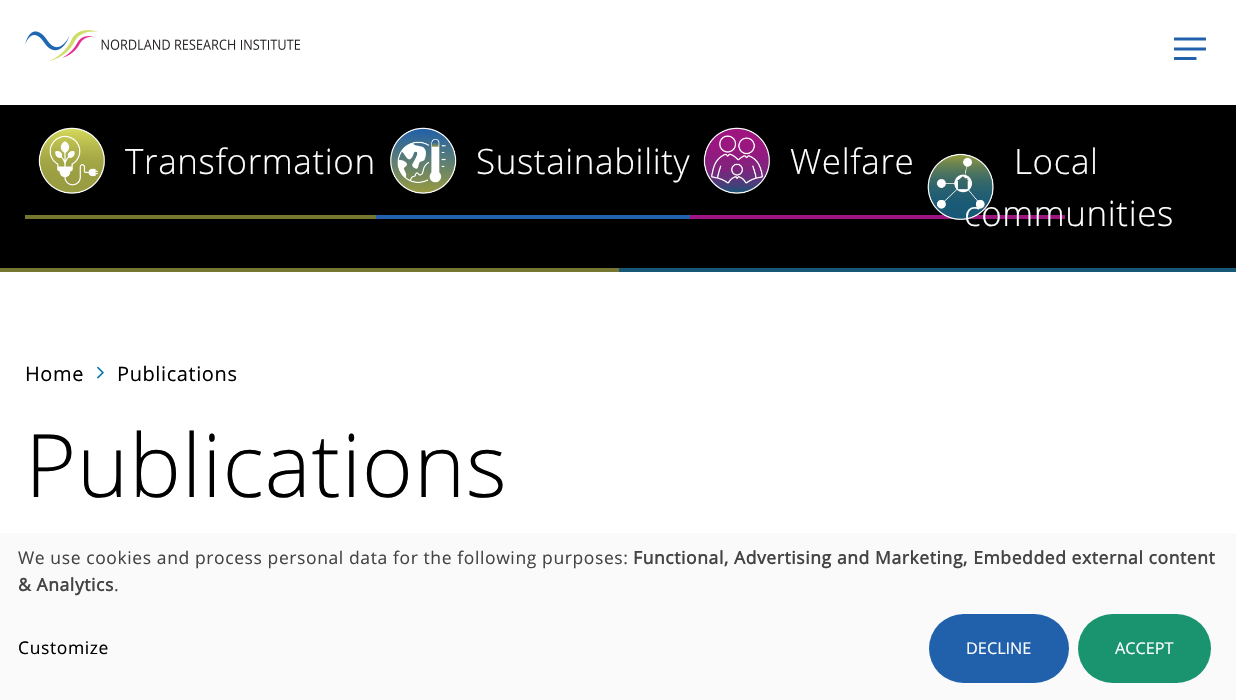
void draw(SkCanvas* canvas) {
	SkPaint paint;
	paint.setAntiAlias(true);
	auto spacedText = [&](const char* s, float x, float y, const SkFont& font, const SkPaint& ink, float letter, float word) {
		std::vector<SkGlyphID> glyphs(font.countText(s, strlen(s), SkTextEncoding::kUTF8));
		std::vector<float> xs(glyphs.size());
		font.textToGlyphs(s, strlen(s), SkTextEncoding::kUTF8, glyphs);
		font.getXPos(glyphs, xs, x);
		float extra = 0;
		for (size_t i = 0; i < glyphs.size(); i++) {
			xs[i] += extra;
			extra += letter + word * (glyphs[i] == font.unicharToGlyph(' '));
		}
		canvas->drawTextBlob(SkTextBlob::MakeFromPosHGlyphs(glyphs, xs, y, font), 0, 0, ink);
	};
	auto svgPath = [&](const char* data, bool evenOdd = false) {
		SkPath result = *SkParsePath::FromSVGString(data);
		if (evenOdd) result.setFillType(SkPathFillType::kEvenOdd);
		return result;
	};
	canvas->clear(0xffffffff);
	canvas->drawImageRect(SkImages::DeferredFromEncodedData(SkData::MakeFromFileName("img1.png")), SkRect::MakeXYWH(25, 30, 275, 31), SkSamplingOptions());
	paint.setStroke(true);
	paint.setStrokeWidth(2.9);
	paint.setStrokeCap(SkPaint::kSquare_Cap);
	paint.setColor(0xff2160aa);
	canvas->drawPath(svgPath("M1175.5 39H1204.5M1175.5 49H1204.5M1175.5 58.5H1195"), paint);
	paint.setStroke(false);
	paint.setColor(0xff000000);
	canvas->drawRect(SkRect::MakeXYWH(0, 105, 1236, 163), paint);
	canvas->drawImageRect(SkImages::DeferredFromEncodedData(SkData::MakeFromFileName("img2.png")), SkRect::MakeXYWH(38, 127, 67, 67), SkSamplingOptions());
	paint.setColor(0xff757731);
	canvas->drawRect(SkRect::MakeXYWH(25, 215, 351, 4), paint);
	SkFont f1(fontMgr->matchFamilyStyle("Open Sans", SkFontStyle(300, SkFontStyle::kNormal_Width, SkFontStyle::kUpright_Slant)), 35);
	f1.setSubpixel(true);
	paint.setColor(0xffffffff);
	spacedText("Transformation", 125, 174, f1, paint, 0.6, 0);
	canvas->drawImageRect(SkImages::DeferredFromEncodedData(SkData::MakeFromFileName("img3.png")), SkRect::MakeXYWH(390, 127, 67, 67), SkSamplingOptions());
	spacedText("Sustainability", 476, 174, f1, paint, 0.6, 0);
	paint.setColor(0xff2160aa);
	canvas->drawRect(SkRect::MakeXYWH(376, 215, 314, 4), paint);
	canvas->drawImageRect(SkImages::DeferredFromEncodedData(SkData::MakeFromFileName("img4.png")), SkRect::MakeXYWH(703, 127, 67, 67), SkSamplingOptions());
	paint.setColor(0xffffffff);
	spacedText("Welfare", 790, 174, f1, paint, 0.6, 0);
	paint.setColor(0xff9f1580);
	canvas->drawRect(SkRect::MakeXYWH(690, 215, 375, 4), paint);
	canvas->drawImageRect(SkImages::DeferredFromEncodedData(SkData::MakeFromFileName("img5.png")), SkRect::MakeXYWH(927, 153, 67, 67), SkSamplingOptions());
	paint.setColor(0xffffffff);
	spacedText("Local", 1014, 174, f1, paint, 0.6, 0);
	spacedText("communities", 964, 226, f1, paint, 0.6, 0);
	paint.setColor(0xff757731);
	canvas->drawRect(SkRect::MakeXYWH(0, 268, 619, 4), paint);
	paint.setColor(0xff175877);
	canvas->drawRect(SkRect::MakeXYWH(619, 268, 617, 4), paint);
	SkFont f2(fontMgr->matchFamilyStyle("Open Sans", SkFontStyle::Normal()), 20);
	f2.setSubpixel(true);
	paint.setColor(0xff000000);
	spacedText("Home", 25, 381, f2, paint, 0.6, 0);
	canvas->drawImageRect(SkImages::DeferredFromEncodedData(SkData::MakeFromFileName("img6.png")), SkRect::MakeXYWH(97, 366, 7, 13), SkSamplingOptions());
	spacedText("Publications", 117, 381, f2, paint, 0.6, 0);
	SkFont f3(fontMgr->matchFamilyStyle("Open Sans", SkFontStyle(300, SkFontStyle::kNormal_Width, SkFontStyle::kUpright_Slant)), 87.5);
	f3.setSubpixel(true);
	spacedText("Publications", 25, 497, f3, paint, 0.6, 0);
	paint.setColor(0xfffafafa);
	canvas->drawRect(SkRect::MakeXYWH(0, 533, 1236, 167), paint);
	SkFont f4(fontMgr->matchFamilyStyle("Open Sans", SkFontStyle::Normal()), 17.5);
	f4.setSubpixel(true);
	paint.setColor(0xff444444);
	spacedText("We use cookies and process personal data for the following purposes:", 18, 564, f4, paint, 0.6, 0);
	SkFont f5(fontMgr->matchFamilyStyle("Open Sans", SkFontStyle::Bold()), 17.5);
	f5.setSubpixel(true);
	spacedText("Functional, Advertising and Marketing, Embedded external content", 633, 564, f5, paint, 0.6, 0);
	spacedText("& Analytics", 18, 591, f5, paint, 0.6, 0);
	spacedText(".", 114, 591, f4, paint, 0.6, 0);
	paint.setColor(0xff000000);
	spacedText("Customize", 18, 654, f4, paint, 0.6, 0);
	paint.setColor(0xff2160aa);
	canvas->drawRoundRect(SkRect::MakeXYWH(929, 614, 140, 69), 34.5, 34.5, paint);
	SkFont f6(fontMgr->matchFamilyStyle("Open Sans", SkFontStyle::Normal()), 16.25);
	f6.setSubpixel(true);
	paint.setColor(0xffffffff);
	canvas->drawString("DECLINE", 966, 654, f6, paint);
	paint.setColor(0xff1a936f);
	canvas->drawRoundRect(SkRect::MakeXYWH(1078, 614, 133, 69), 34.5, 34.5, paint);
	paint.setColor(0xffffffff);
	canvas->drawString("ACCEPT", 1115, 654, f6, paint);
}
